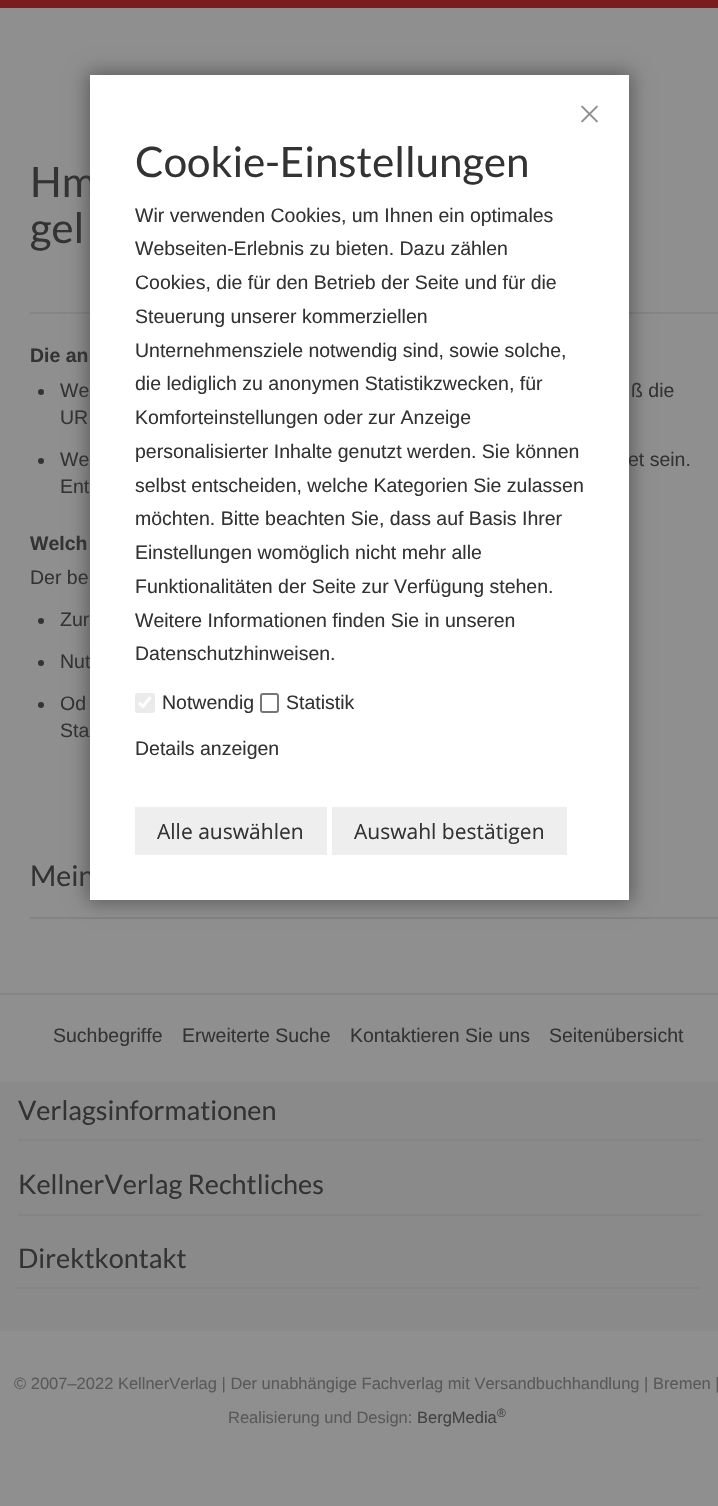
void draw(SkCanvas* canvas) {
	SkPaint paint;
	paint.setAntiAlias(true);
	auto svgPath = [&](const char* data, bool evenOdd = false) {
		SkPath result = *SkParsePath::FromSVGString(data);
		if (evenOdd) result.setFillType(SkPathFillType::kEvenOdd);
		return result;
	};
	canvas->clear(0xff8f8f8f);
	paint.setColor(0xff858585);
	canvas->drawRect(SkRect::MakeXYWH(30, 312, 688, 2), paint);
	paint.setColor(0xff838383);
	canvas->drawRect(SkRect::MakeXYWH(30, 917, 688, 2), paint);
	paint.setColor(0x59000000);
	paint.setMaskFilter(SkMaskFilter::MakeBlur(kNormal_SkBlurStyle, 9));
	canvas->drawRect(SkRect::MakeXYWH(87, 72, 545, 831), paint);
	paint.setMaskFilter(nullptr);
	SkFont f1(fontMgr->matchFamilyStyle("Lato", SkFontStyle::Normal()), 42);
	f1.setSubpixel(true);
	paint.setColor(0xff333333);
	canvas->drawString("Hm", 30, 197, f1, paint);
	SkFont f2(fontMgr->matchFamilyStyle("Liberation Sans", SkFontStyle::Normal()), 19.5);
	f2.setSubpixel(true);
	canvas->drawString("et sein.", 628, 466, f2, paint);
	canvas->drawString("Nut", 60, 668, f2, paint);
	SkFont f3(fontMgr->matchFamilyStyle("Lato", SkFontStyle::Normal()), 28.5);
	f3.setSubpixel(true);
	canvas->drawString("Mein", 30, 886, f3, paint);
	paint.setColor(0xffffffff);
	canvas->drawRect(SkRect::MakeXYWH(90, 75, 539, 825), paint);
	canvas->drawImageRect(SkImages::DeferredFromEncodedData(SkData::MakeFromFileName("img1.png")), SkRect::MakeXYWH(581, 105, 17, 18), SkSamplingOptions());
	paint.setColor(0xff333333);
	canvas->drawString("Cookie-Einstellungen", 135, 177, f1, paint);
	canvas->drawString("Wir verwenden Cookies, um Ihnen ein optimales", 135, 222, f2, paint);
	canvas->drawString("Webseiten-Erlebnis zu bieten. Dazu zählen", 135, 255, f2, paint);
	canvas->drawString("Cookies, die für den Betrieb der Seite und für die", 135, 289, f2, paint);
	canvas->drawString("Steuerung unserer kommerziellen", 135, 323, f2, paint);
	canvas->drawString("Unternehmensziele notwendig sind, sowie solche,", 135, 357, f2, paint);
	canvas->drawString("die lediglich zu anonymen Statistikzwecken, für", 135, 390, f2, paint);
	canvas->drawString("Komforteinstellungen oder zur Anzeige", 135, 424, f2, paint);
	canvas->drawString("personalisierter Inhalte genutzt werden. Sie können", 135, 458, f2, paint);
	canvas->drawString("selbst entscheiden, welche Kategorien Sie zulassen", 135, 492, f2, paint);
	canvas->drawString("möchten. Bitte beachten Sie, dass auf Basis Ihrer", 135, 525, f2, paint);
	canvas->drawString("Einstellungen womöglich nicht mehr alle", 135, 559, f2, paint);
	canvas->drawString("Funktionalitäten der Seite zur Verfügung stehen.", 135, 593, f2, paint);
	canvas->drawString("Weitere Informationen finden Sie in unseren", 135, 627, f2, paint);
	canvas->drawString("Datenschutzhinweisen.", 135, 660, f2, paint);
	paint.setColor(0xffebebeb);
	canvas->drawRoundRect(SkRect::MakeXYWH(135, 693, 20, 20), 3, 3, paint);
	paint.setStroke(true);
	paint.setStrokeWidth(3.1);
	paint.setColor(0xffffffff);
	canvas->drawPath(svgPath("M139 703L143 706.5L150.5 697"), paint);
	paint.setStroke(false);
	paint.setColor(0xff333333);
	canvas->drawString("Notwendig", 162, 709, f2, paint);
	paint.setStroke(true);
	paint.setStrokeWidth(2);
	paint.setColor(0xff767676);
	canvas->drawRoundRect(SkRect::MakeXYWH(261, 694, 17, 18), 2, 2, paint);
	paint.setStroke(false);
	paint.setColor(0xff333333);
	canvas->drawString("Statistik", 286, 709, f2, paint);
	canvas->drawString("Details anzeigen", 135, 755, f2, paint);
	paint.setColor(0xffeeeeee);
	canvas->drawRect(SkRect::MakeXYWH(135, 807, 192, 48), paint);
	SkFont f4(fontMgr->matchFamilyStyle("Open Sans", SkFontStyle::Normal()), 21);
	f4.setSubpixel(true);
	paint.setColor(0xff333333);
	canvas->drawString("Alle auswählen", 157, 839, f4, paint);
	paint.setColor(0xffeeeeee);
	canvas->drawRect(SkRect::MakeXYWH(332, 807, 235, 48), paint);
	paint.setColor(0xff333333);
	canvas->drawString("Auswahl bestätigen", 354, 839, f4, paint);
	paint.setColor(0xff7b1c1f);
	canvas->drawRect(SkRect::MakeXYWH(0, 0, 718, 8), paint);
	paint.setColor(0xff333333);
	canvas->drawString("gel", 30, 243, f1, paint);
	SkFont f5(fontMgr->matchFamilyStyle("Liberation Sans", SkFontStyle::Bold()), 19.5);
	f5.setSubpixel(true);
	canvas->drawString("Die an", 30, 362, f5, paint);
	canvas->drawCircle(41, 392, 3, paint);
	canvas->drawString("We", 60, 397, f2, paint);
	canvas->drawString("ß die", 631, 397, f2, paint);
	canvas->drawString("UR", 60, 424, f2, paint);
	canvas->drawCircle(41, 461, 3, paint);
	canvas->drawString("We", 60, 466, f2, paint);
	canvas->drawString("Ent", 60, 493, f2, paint);
	canvas->drawString("Welch", 30, 550, f5, paint);
	canvas->drawString("Der be", 30, 584, f2, paint);
	canvas->drawCircle(41, 621, 3, paint);
	canvas->drawString("Zur", 60, 626, f2, paint);
	canvas->drawCircle(41, 663, 3, paint);
	canvas->drawCircle(41, 705, 3, paint);
	canvas->drawString("Od", 60, 710, f2, paint);
	canvas->drawString("Sta", 60, 737, f2, paint);
	paint.setColor(0xff8a8a8a);
	canvas->drawRect(SkRect::MakeXYWH(0, 1082, 718, 249), paint);
	paint.setColor(0xff858585);
	canvas->drawRect(SkRect::MakeXYWH(0, 993, 718, 2), paint);
	paint.setColor(0xff333333);
	canvas->drawString("Suchbegriffe", 53, 1042, f2, paint);
	canvas->drawString("Erweiterte Suche", 182, 1042, f2, paint);
	canvas->drawString("Kontaktieren Sie uns", 350, 1042, f2, paint);
	canvas->drawString("Seitenübersicht", 549, 1042, f2, paint);
	paint.setColor(0xff858585);
	canvas->drawRect(SkRect::MakeXYWH(18, 1139, 683, 2), paint);
	SkFont f6(fontMgr->matchFamilyStyle("Lato", SkFontStyle::Normal()), 27);
	f6.setSubpixel(true);
	paint.setColor(0xff333333);
	canvas->drawString("Verlagsinformationen", 18, 1120, f6, paint);
	paint.setColor(0xff858585);
	canvas->drawRect(SkRect::MakeXYWH(18, 1214, 683, 2), paint);
	paint.setColor(0xff333333);
	canvas->drawString("KellnerVerlag Rechtliches", 18, 1194, f6, paint);
	paint.setColor(0xff858585);
	canvas->drawRect(SkRect::MakeXYWH(18, 1287, 683, 2), paint);
	paint.setColor(0xff333333);
	canvas->drawString("Direktkontakt", 18, 1268, f6, paint);
	SkFont f7(fontMgr->matchFamilyStyle("Liberation Sans", SkFontStyle::Normal()), 16.5);
	f7.setSubpixel(true);
	paint.setColor(0xff595959);
	canvas->drawString("© 2007–2022 KellnerVerlag | Der unabhängige Fachverlag mit Versandbuchhandlung | Bremen |", 14, 1389, f7, paint);
	canvas->drawString("Realisierung und Design:", 228, 1423, f7, paint);
	paint.setColor(0xff424242);
	canvas->drawString("BergMedia", 417, 1423, f7, paint);
	SkFont f8(fontMgr->matchFamilyStyle("Liberation Sans", SkFontStyle::Normal()), 12);
	f8.setSubpixel(true);
	canvas->drawString("®", 497, 1417, f8, paint);
}
